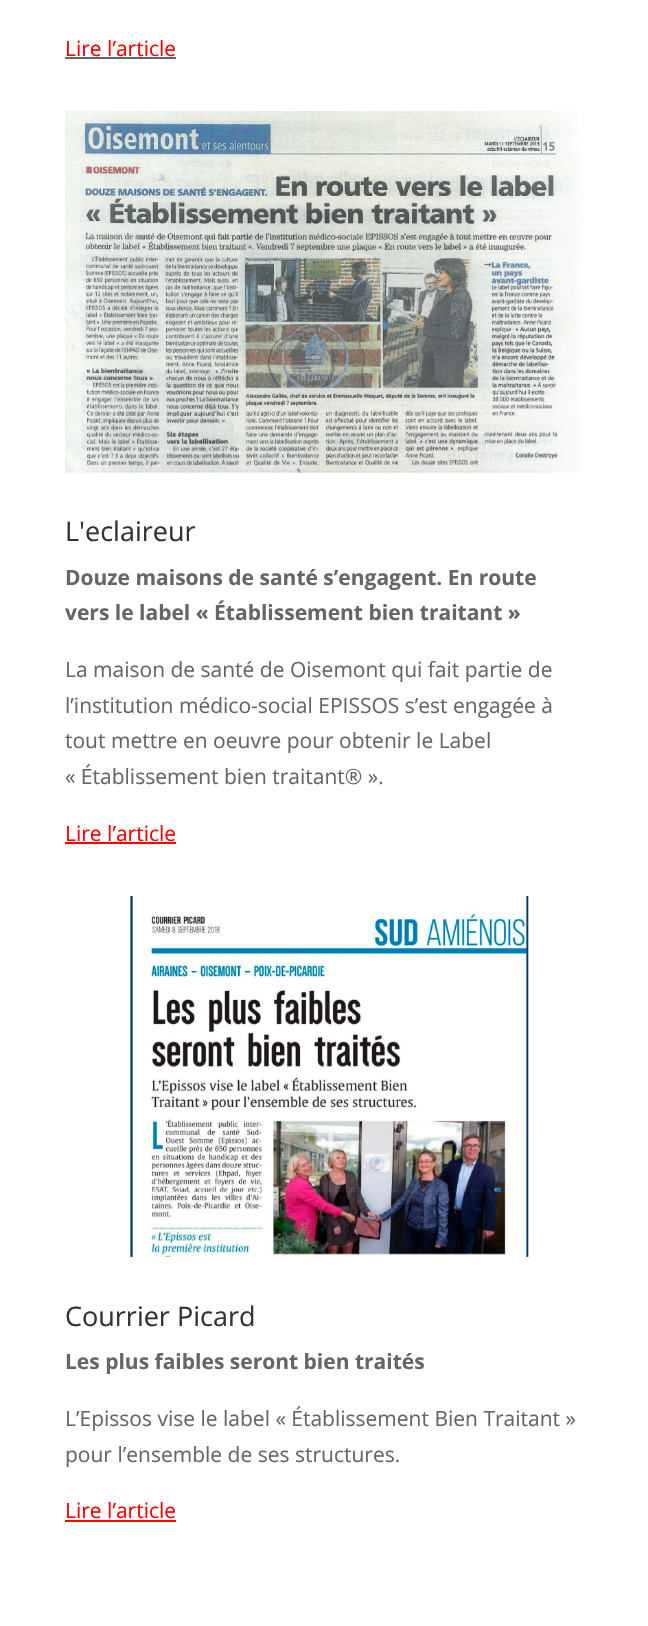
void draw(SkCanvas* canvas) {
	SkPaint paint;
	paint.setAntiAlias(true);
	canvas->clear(0xffffffff);
	SkFont f1(fontMgr->matchFamilyStyle("Open Sans", SkFontStyle::Normal()), 21);
	f1.setSubpixel(true);
	paint.setColor(0xffff0000);
	canvas->drawString("Lire l’article", 65, 56, f1, paint);
	paint.setColor(0xff666666);
	canvas->drawRect(SkRect::MakeXYWH(65, 57, 111, 2), paint);
	canvas->drawImageRect(SkImages::DeferredFromEncodedData(SkData::MakeFromFileName("img1.png")), SkRect::MakeXYWH(65, 111, 519, 362), SkSamplingOptions());
	SkFont f2(fontMgr->matchFamilyStyle("Open Sans", SkFontStyle::Normal()), 27);
	f2.setSubpixel(true);
	paint.setColor(0xff333333);
	canvas->drawString("L'eclaireur", 65, 541, f2, paint);
	SkFont f3(fontMgr->matchFamilyStyle("Open Sans", SkFontStyle::Bold()), 21);
	f3.setSubpixel(true);
	paint.setColor(0xff666666);
	canvas->drawString("Douze maisons de santé s’engagent. En route", 65, 585, f3, paint);
	canvas->drawString("vers le label « Établissement bien traitant »", 65, 620, f3, paint);
	canvas->drawString("La maison de santé de Oisemont qui fait partie de", 65, 677, f1, paint);
	canvas->drawString("l’institution médico-social EPISSOS s’est engagée à", 65, 713, f1, paint);
	canvas->drawString("tout mettre en oeuvre pour obtenir le Label", 65, 748, f1, paint);
	canvas->drawString("« Établissement bien traitant® ».", 65, 784, f1, paint);
	paint.setColor(0xffff0000);
	canvas->drawString("Lire l’article", 65, 841, f1, paint);
	canvas->drawRect(SkRect::MakeXYWH(65, 842, 111, 2), paint);
	canvas->drawImageRect(SkImages::DeferredFromEncodedData(SkData::MakeFromFileName("img2.png")), SkRect::MakeXYWH(130, 896, 399, 361), SkSamplingOptions());
	paint.setColor(0xff333333);
	canvas->drawString("Courrier Picard", 65, 1326, f2, paint);
	paint.setColor(0xff666666);
	canvas->drawString("Les plus faibles seront bien traités", 65, 1369, f3, paint);
	canvas->drawString("L’Epissos vise le label « Établissement Bien Traitant »", 65, 1426, f1, paint);
	canvas->drawString("pour l’ensemble de ses structures.", 65, 1462, f1, paint);
	paint.setColor(0xffff0000);
	canvas->drawString("Lire l’article", 65, 1518, f1, paint);
	canvas->drawRect(SkRect::MakeXYWH(65, 1520, 111, 2), paint);
}
